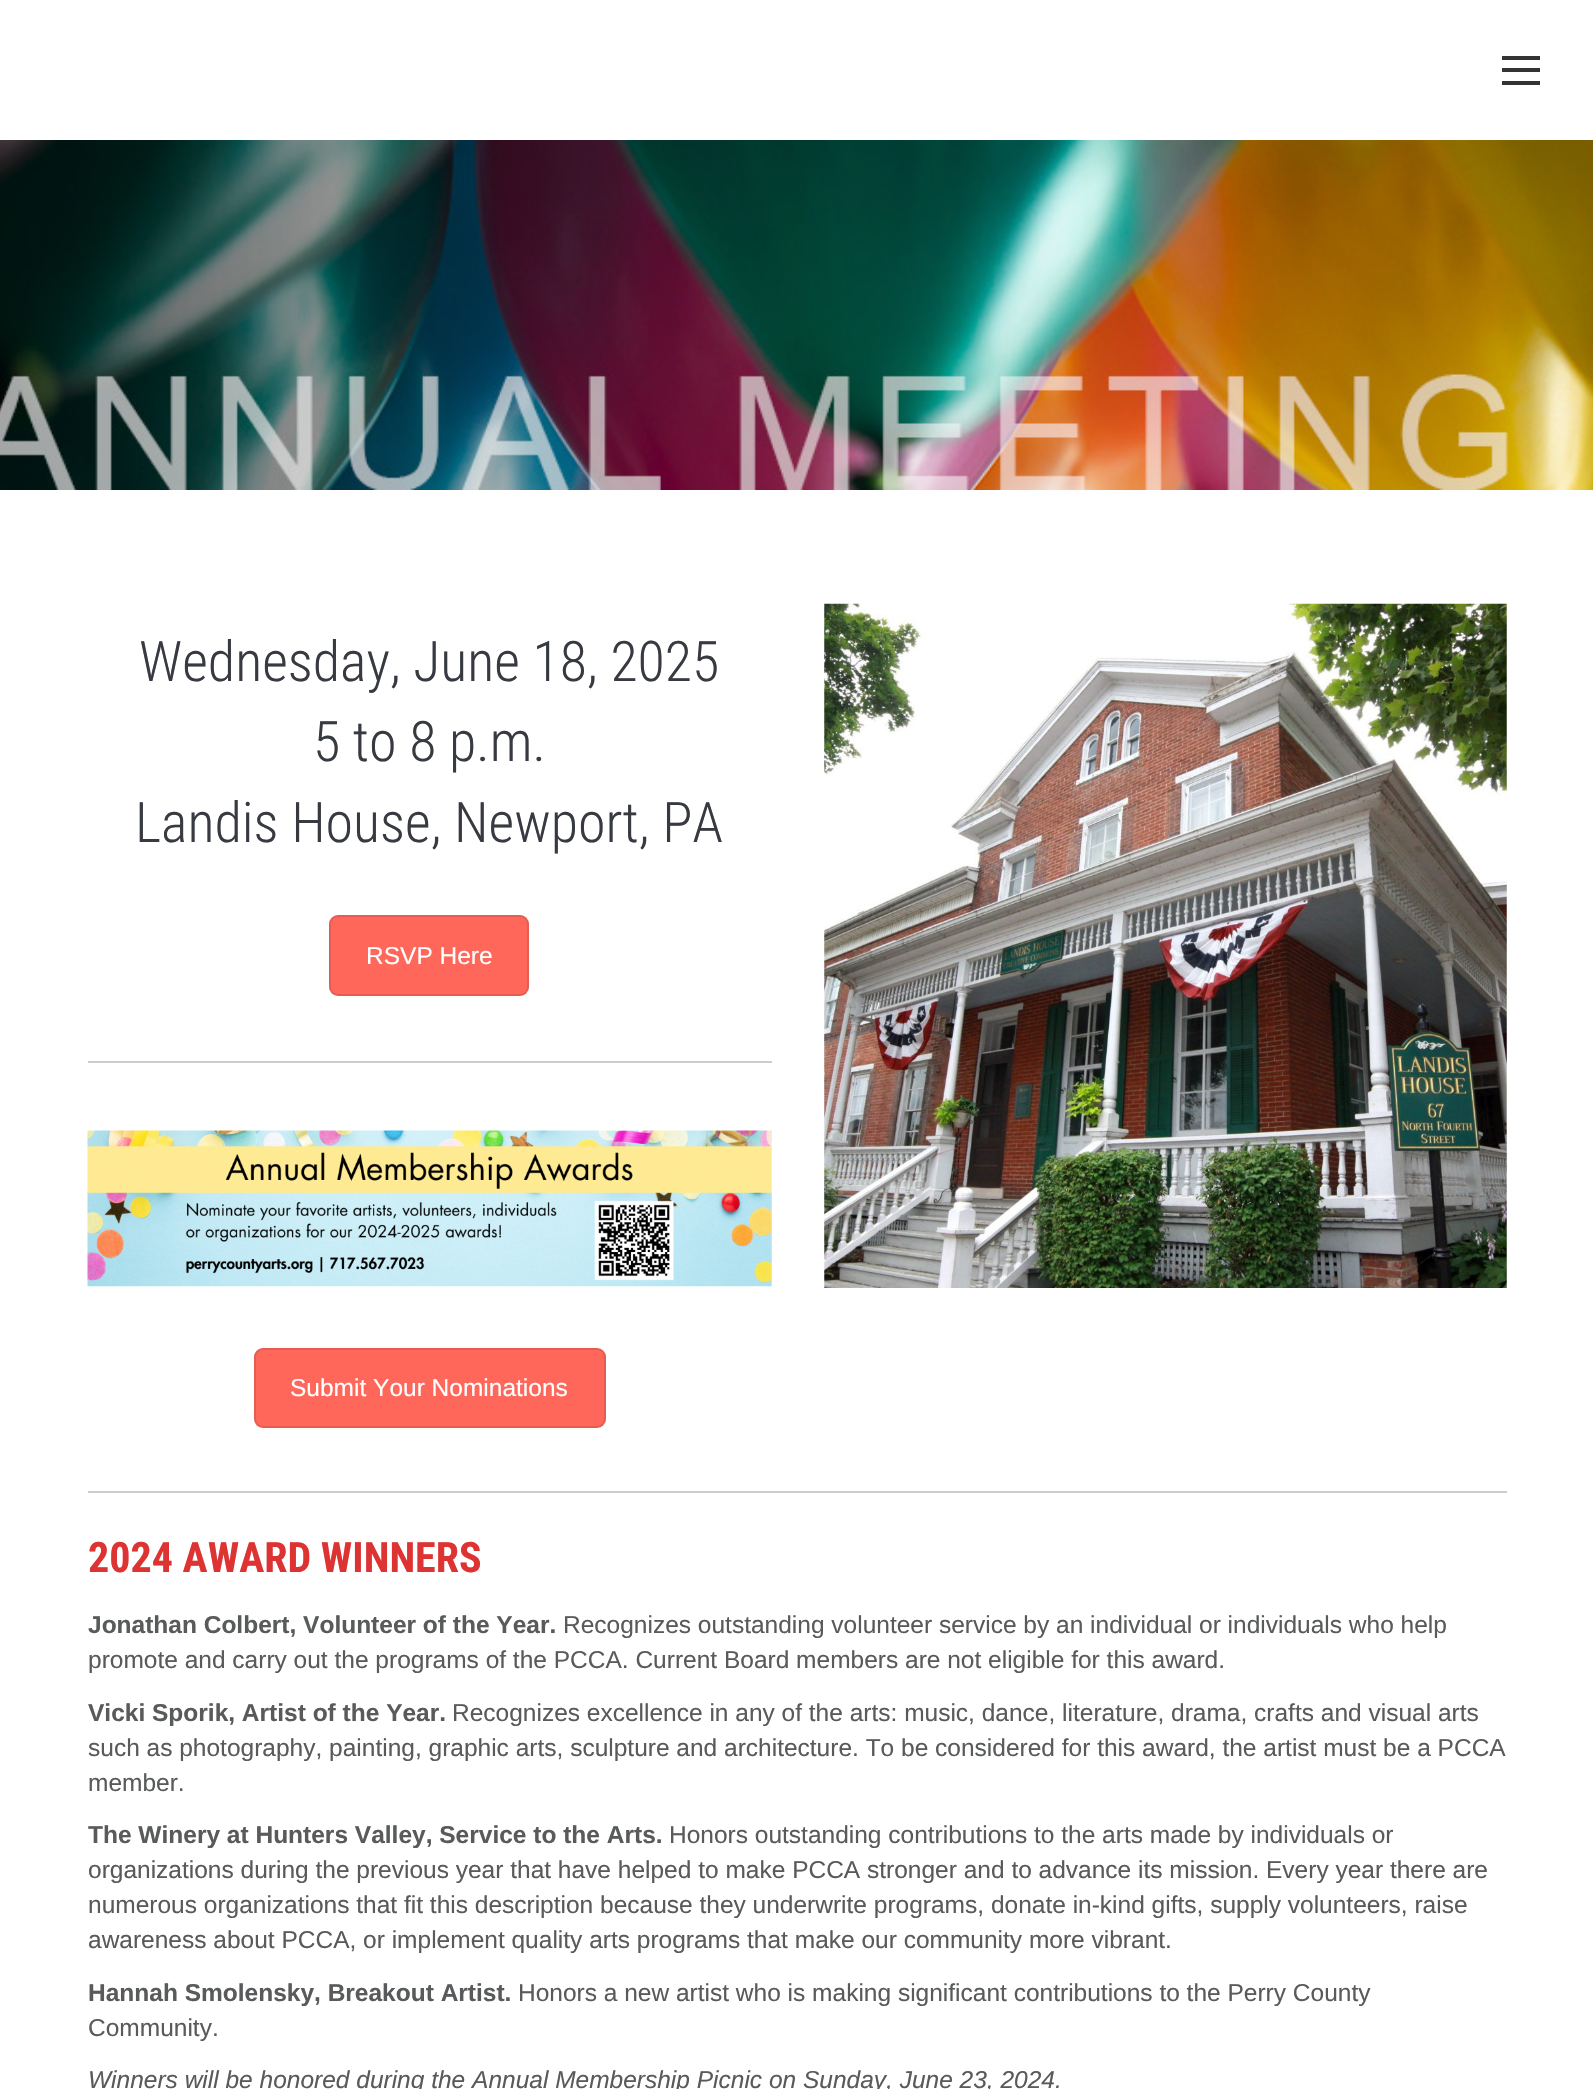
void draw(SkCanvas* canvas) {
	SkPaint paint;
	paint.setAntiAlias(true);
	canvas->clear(0xffffffff);
	paint.setColor(0xff333333);
	canvas->drawRect(SkRect::MakeXYWH(1502, 56, 38, 4), paint);
	canvas->drawRect(SkRect::MakeXYWH(1502, 68, 38, 4), paint);
	canvas->drawRect(SkRect::MakeXYWH(1502, 81, 38, 4), paint);
	canvas->drawImageRect(SkImages::DeferredFromEncodedData(SkData::MakeFromFileName("img1.png")), SkRect::MakeXYWH(0, 140, 1593, 350), SkSamplingOptions());
	SkFont f1(fontMgr->matchFamilyStyle("Roboto Condensed", SkFontStyle(300, SkFontStyle::kNormal_Width, SkFontStyle::kUpright_Slant)), 56);
	f1.setSubpixel(true);
	paint.setColor(0xff373a41);
	canvas->drawString("Wednesday, June 18, 2025", 139, 681, f1, paint);
	canvas->drawString("5 to 8 p.m.", 313, 761, f1, paint);
	canvas->drawString("Landis House, Newport, PA", 135, 842, f1, paint);
	paint.setColor(0xffff675b);
	canvas->drawRoundRect(SkRect::MakeXYWH(329, 915, 200, 81), 9, 9, paint);
	paint.setStroke(true);
	paint.setStrokeWidth(2);
	paint.setColor(0x1a000000);
	canvas->drawRoundRect(SkRect::MakeXYWH(330, 916, 198, 79), 8, 8, paint);
	SkFont f2(fontMgr->matchFamilyStyle("Liberation Sans", SkFontStyle::Normal()), 24.5);
	f2.setSubpixel(true);
	paint.setStroke(false);
	paint.setColor(0xffffffff);
	canvas->drawString("RSVP Here", 366, 964, f2, paint);
	paint.setColor(0xffcccccc);
	canvas->drawRect(SkRect::MakeXYWH(88, 1061, 684, 2), paint);
	canvas->drawImageRect(SkImages::DeferredFromEncodedData(SkData::MakeFromFileName("img2.png")), SkRect::MakeXYWH(87, 1130, 685, 157), SkSamplingOptions());
	paint.setColor(0xffff675b);
	canvas->drawRoundRect(SkRect::MakeXYWH(254, 1348, 352, 80), 9, 9, paint);
	paint.setStroke(true);
	paint.setColor(0x1a000000);
	canvas->drawRoundRect(SkRect::MakeXYWH(255, 1349, 350, 78), 8, 8, paint);
	paint.setStroke(false);
	paint.setColor(0xffffffff);
	canvas->drawString("Submit Your Nominations", 290, 1396, f2, paint);
	canvas->drawImageRect(SkImages::DeferredFromEncodedData(SkData::MakeFromFileName("img3.png")), SkRect::MakeXYWH(824, 603, 683, 685), SkSamplingOptions());
	paint.setColor(0xffcccccc);
	canvas->drawRect(SkRect::MakeXYWH(88, 1491, 1419, 2), paint);
	SkFont f3(fontMgr->matchFamilyStyle("Roboto Condensed", SkFontStyle::Bold()), 42);
	f3.setSubpixel(true);
	paint.setColor(0xffdd3333);
	canvas->drawString("2024 AWARD WINNERS", 88, 1572, f3, paint);
	SkFont f4(fontMgr->matchFamilyStyle("Liberation Sans", SkFontStyle::Bold()), 24.5);
	f4.setSubpixel(true);
	paint.setColor(0xff595a5b);
	canvas->drawString("Jonathan Colbert, Volunteer of the Year.", 88, 1633, f4, paint);
	canvas->drawString("Recognizes outstanding volunteer service by an individual or individuals who help", 563, 1633, f2, paint);
	canvas->drawString("promote and carry out the programs of the PCCA. Current Board members are not eligible for this award.", 88, 1668, f2, paint);
	canvas->drawString("Vicki Sporik, Artist of the Year.", 88, 1721, f4, paint);
	canvas->drawString("Recognizes excellence in any of the arts: music, dance, literature, drama, crafts and visual arts", 452, 1721, f2, paint);
	canvas->drawString("such as photography, painting, graphic arts, sculpture and architecture. To be considered for this award, the artist must be a PCCA", 88, 1756, f2, paint);
	canvas->drawString("member.", 88, 1791, f2, paint);
	canvas->drawString("The Winery at Hunters Valley, Service to the Arts.", 88, 1843, f4, paint);
	canvas->drawString("Honors outstanding contributions to the arts made by individuals or", 669, 1843, f2, paint);
	canvas->drawString("organizations during the previous year that have helped to make PCCA stronger and to advance its mission. Every year there are", 88, 1878, f2, paint);
	canvas->drawString("numerous organizations that fit this description because they underwrite programs, donate in-kind gifts, supply volunteers, raise", 88, 1913, f2, paint);
	canvas->drawString("awareness about PCCA, or implement quality arts programs that make our community more vibrant.", 88, 1948, f2, paint);
	canvas->drawString("Hannah Smolensky, Breakout Artist.", 88, 2001, f4, paint);
	canvas->drawString("Honors a new artist who is making significant contributions to the Perry County", 518, 2001, f2, paint);
	canvas->drawString("Community.", 88, 2036, f2, paint);
	SkFont f5(fontMgr->matchFamilyStyle("Liberation Sans", SkFontStyle::Italic()), 24.5);
	f5.setSubpixel(true);
	canvas->drawString("Winners will be honored during the Annual Membership Picnic on Sunday, June 23, 2024.", 88, 2088, f5, paint);
}
